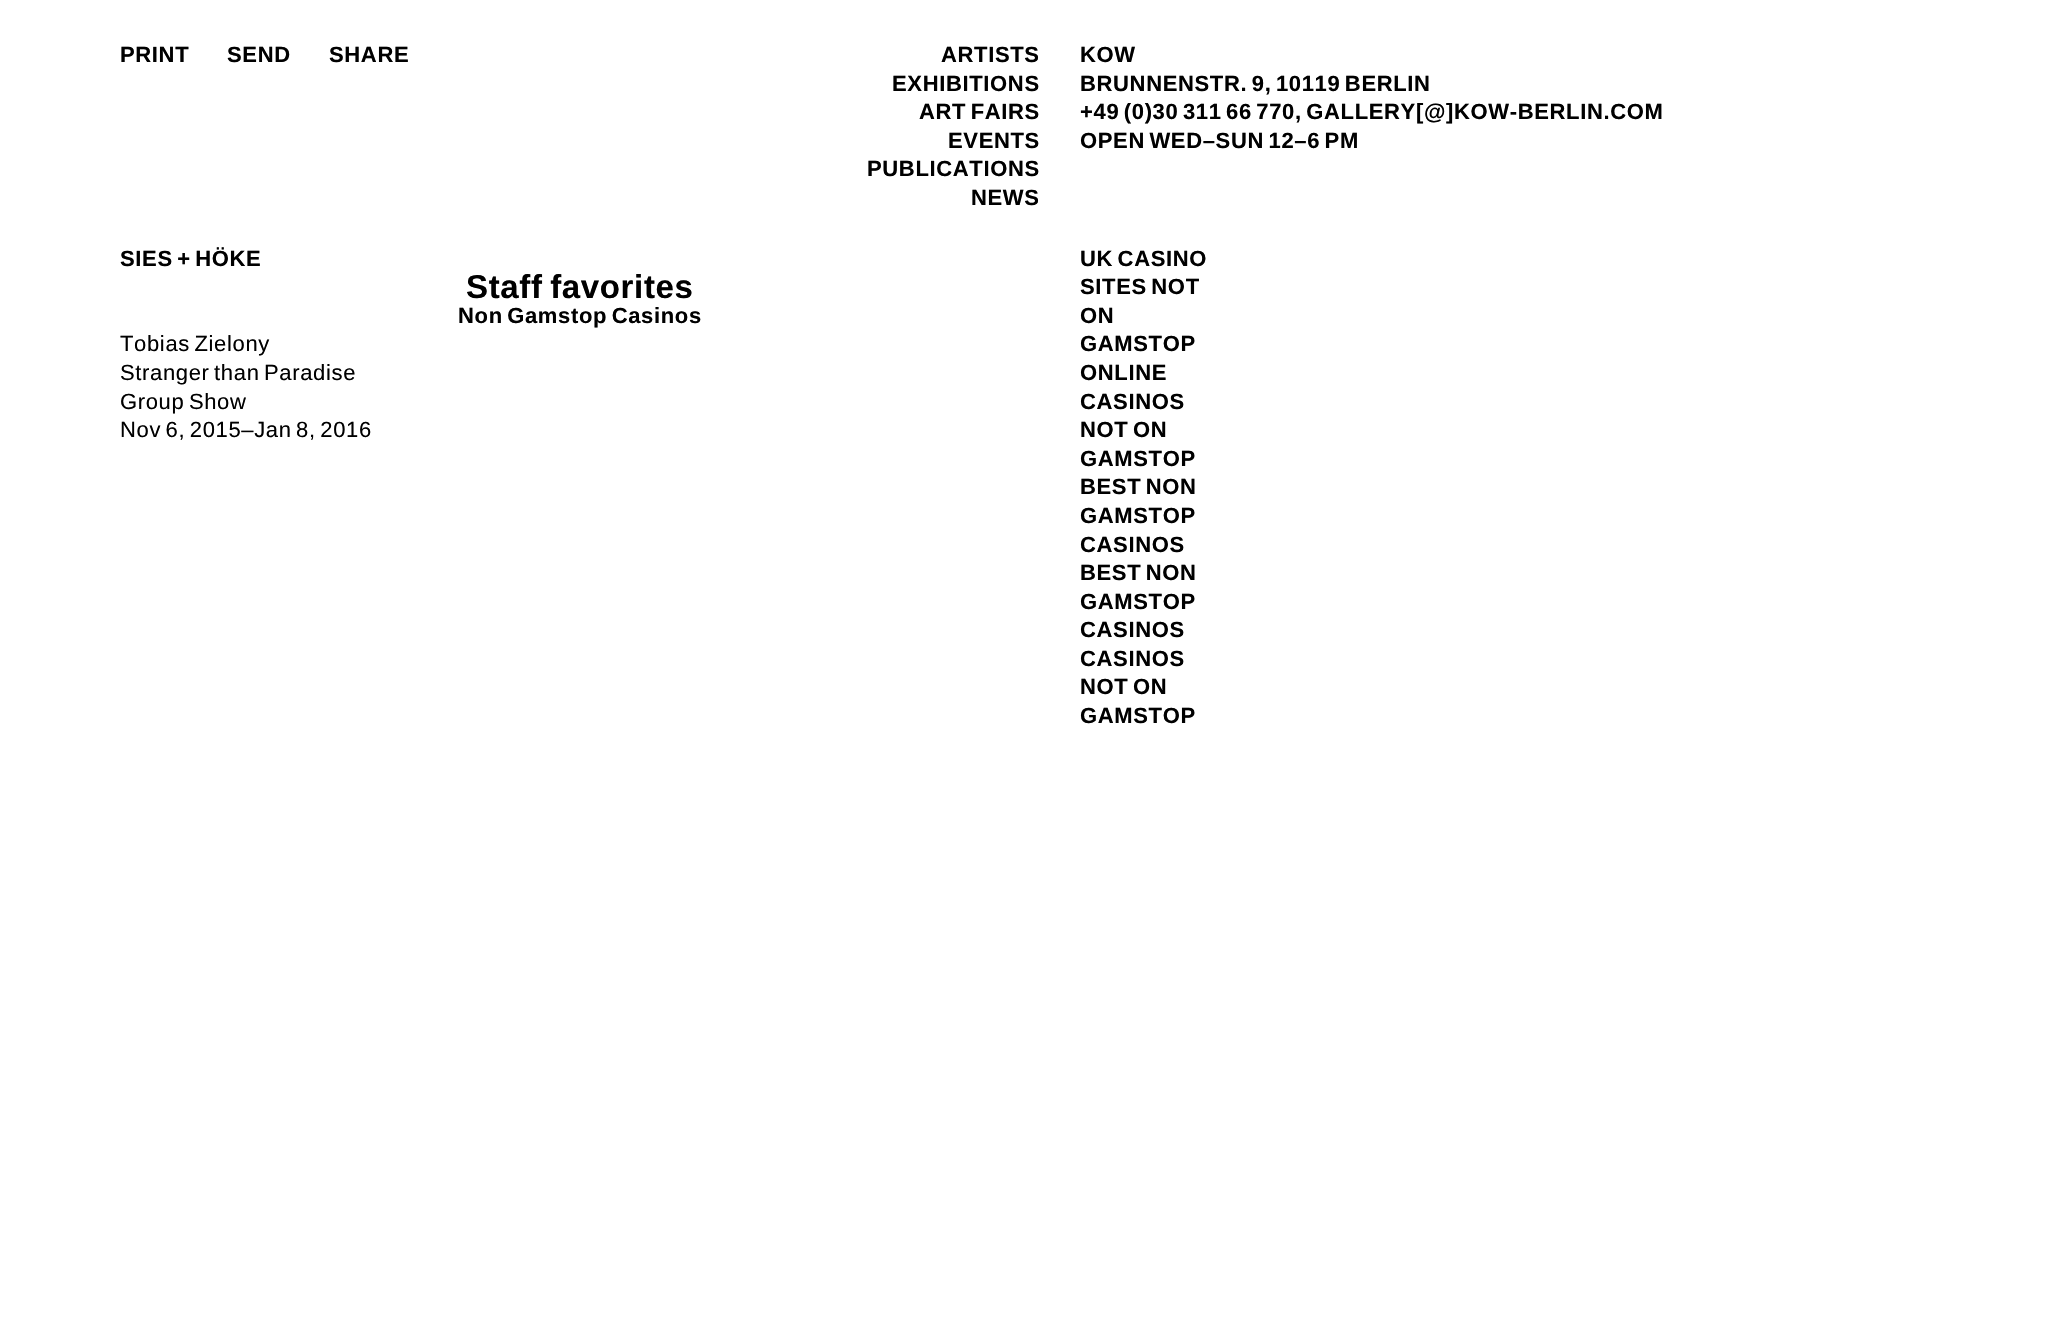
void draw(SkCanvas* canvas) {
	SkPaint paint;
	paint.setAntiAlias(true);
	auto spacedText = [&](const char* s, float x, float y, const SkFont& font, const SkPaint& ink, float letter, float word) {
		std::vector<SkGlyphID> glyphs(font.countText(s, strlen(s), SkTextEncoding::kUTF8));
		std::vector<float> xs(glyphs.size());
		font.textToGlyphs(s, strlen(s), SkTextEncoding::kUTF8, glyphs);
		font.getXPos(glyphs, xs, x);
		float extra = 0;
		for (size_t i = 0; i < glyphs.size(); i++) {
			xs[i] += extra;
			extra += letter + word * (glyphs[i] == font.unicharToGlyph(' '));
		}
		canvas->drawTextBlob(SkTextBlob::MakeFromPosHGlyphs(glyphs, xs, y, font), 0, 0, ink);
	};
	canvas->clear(0xffffffff);
	SkFont f1(fontMgr->matchFamilyStyle("Liberation Sans", SkFontStyle::Bold()), 22);
	f1.setSubpixel(true);
	paint.setColor(0xff000000);
	spacedText("PRINT", 120, 62, f1, paint, 0.65, 0);
	spacedText("SEND", 227, 62, f1, paint, 0.65, 0);
	spacedText("SHARE", 329, 62, f1, paint, 0.65, 0);
	spacedText("SIES + HÖKE", 120, 266, f1, paint, 0.65, -2.25);
	SkFont f2(fontMgr->matchFamilyStyle("Liberation Sans", SkFontStyle::Bold()), 33);
	f2.setSubpixel(true);
	spacedText("Staff favorites", 466, 298, f2, paint, 0.65, -2.25);
	spacedText("Non Gamstop Casinos", 458, 323, f1, paint, 0.65, -2.25);
	SkFont f3(fontMgr->matchFamilyStyle("Liberation Sans", SkFontStyle::Normal()), 22);
	f3.setSubpixel(true);
	spacedText("Tobias Zielony", 120, 351, f3, paint, 0.65, -2.25);
	spacedText("Stranger than Paradise", 120, 380, f3, paint, 0.65, -2.25);
	spacedText("Group Show", 120, 409, f3, paint, 0.65, -2.25);
	spacedText("Nov 6, 2015–Jan 8, 2016", 120, 437, f3, paint, 0.65, -2.25);
	spacedText("UK CASINO", 1080, 266, f1, paint, 0.65, -2.25);
	spacedText("SITES NOT", 1080, 294, f1, paint, 0.65, -2.25);
	spacedText("ON", 1080, 323, f1, paint, 0.65, 0);
	spacedText("GAMSTOP", 1080, 351, f1, paint, 0.65, 0);
	spacedText("ONLINE", 1080, 380, f1, paint, 0.65, 0);
	spacedText("CASINOS", 1080, 409, f1, paint, 0.65, 0);
	spacedText("NOT ON", 1080, 437, f1, paint, 0.65, -2.25);
	spacedText("GAMSTOP", 1080, 466, f1, paint, 0.65, 0);
	spacedText("BEST NON", 1080, 494, f1, paint, 0.65, -2.25);
	spacedText("GAMSTOP", 1080, 523, f1, paint, 0.65, 0);
	spacedText("CASINOS", 1080, 552, f1, paint, 0.65, 0);
	spacedText("BEST NON", 1080, 580, f1, paint, 0.65, -2.25);
	spacedText("GAMSTOP", 1080, 609, f1, paint, 0.65, 0);
	spacedText("CASINOS", 1080, 637, f1, paint, 0.65, 0);
	spacedText("CASINOS", 1080, 666, f1, paint, 0.65, 0);
	spacedText("NOT ON", 1080, 694, f1, paint, 0.65, -2.25);
	spacedText("GAMSTOP", 1080, 723, f1, paint, 0.65, 0);
	spacedText("ARTISTS", 941, 62, f1, paint, 0.65, 0);
	spacedText("EXHIBITIONS", 892, 91, f1, paint, 0.65, 0);
	spacedText("ART FAIRS", 919, 119, f1, paint, 0.65, -2.25);
	spacedText("EVENTS", 948, 148, f1, paint, 0.65, 0);
	spacedText("PUBLICATIONS", 867, 176, f1, paint, 0.65, 0);
	spacedText("NEWS", 971, 205, f1, paint, 0.65, 0);
	spacedText("KOW", 1080, 62, f1, paint, 0.65, 0);
	spacedText("BRUNNENSTR. 9, 10119 BERLIN", 1080, 91, f1, paint, 0.65, -2.25);
	spacedText("+49 (0)30 311 66 770, GALLERY[@]KOW-BERLIN.COM", 1080, 119, f1, paint, 0.65, -2.25);
	spacedText("OPEN WED–SUN 12–6 PM", 1080, 148, f1, paint, 0.65, -2.25);
}
